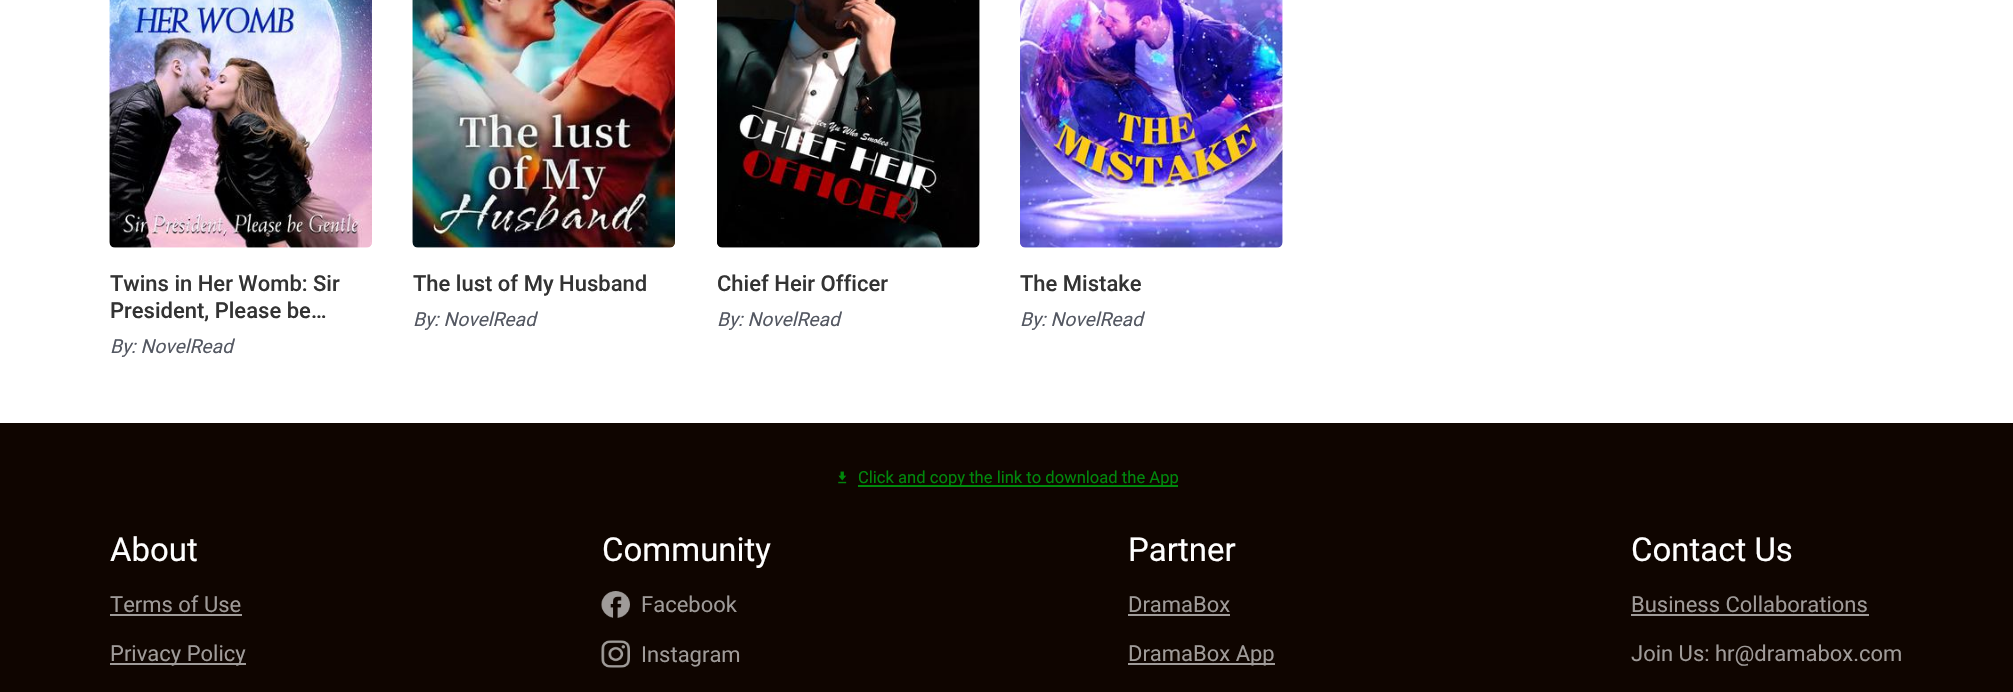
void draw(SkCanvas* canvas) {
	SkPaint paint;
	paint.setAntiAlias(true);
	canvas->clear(0xffffffff);
	canvas->drawImageRect(SkImages::DeferredFromEncodedData(SkData::MakeFromFileName("img1.png")), SkRect::MakeXYWH(109, 0, 263, 248), SkSamplingOptions());
	canvas->drawImageRect(SkImages::DeferredFromEncodedData(SkData::MakeFromFileName("img2.png")), SkRect::MakeXYWH(109, 0, 263, 248), SkSamplingOptions());
	SkFont f1(fontMgr->matchFamilyStyle("Roboto", SkFontStyle(500, SkFontStyle::kNormal_Width, SkFontStyle::kUpright_Slant)), 22);
	f1.setSubpixel(true);
	paint.setColor(0xff333333);
	canvas->drawString("Twins in Her Womb: Sir", 110, 291, f1, paint);
	canvas->drawString("President, Please be…", 110, 318, f1, paint);
	SkFont f2(fontMgr->matchFamilyStyle("Roboto", SkFontStyle::Italic()), 19.25);
	f2.setSubpixel(true);
	paint.setColor(0xff545862);
	canvas->drawString("By: NovelRead", 110, 353, f2, paint);
	canvas->drawImageRect(SkImages::DeferredFromEncodedData(SkData::MakeFromFileName("img3.png")), SkRect::MakeXYWH(412, 0, 263, 248), SkSamplingOptions());
	canvas->drawImageRect(SkImages::DeferredFromEncodedData(SkData::MakeFromFileName("img4.png")), SkRect::MakeXYWH(412, 0, 263, 248), SkSamplingOptions());
	paint.setColor(0xff333333);
	canvas->drawString("The lust of My Husband", 413, 291, f1, paint);
	paint.setColor(0xff545862);
	canvas->drawString("By: NovelRead", 413, 326, f2, paint);
	canvas->drawImageRect(SkImages::DeferredFromEncodedData(SkData::MakeFromFileName("img5.png")), SkRect::MakeXYWH(717, 0, 263, 248), SkSamplingOptions());
	canvas->drawImageRect(SkImages::DeferredFromEncodedData(SkData::MakeFromFileName("img6.png")), SkRect::MakeXYWH(717, 0, 263, 248), SkSamplingOptions());
	paint.setColor(0xff333333);
	canvas->drawString("Chief Heir Officer", 717, 291, f1, paint);
	paint.setColor(0xff545862);
	canvas->drawString("By: NovelRead", 717, 326, f2, paint);
	canvas->drawImageRect(SkImages::DeferredFromEncodedData(SkData::MakeFromFileName("img7.png")), SkRect::MakeXYWH(1020, 0, 263, 248), SkSamplingOptions());
	canvas->drawImageRect(SkImages::DeferredFromEncodedData(SkData::MakeFromFileName("img8.png")), SkRect::MakeXYWH(1020, 0, 263, 248), SkSamplingOptions());
	paint.setColor(0xff333333);
	canvas->drawString("The Mistake", 1020, 291, f1, paint);
	paint.setColor(0xff545862);
	canvas->drawString("By: NovelRead", 1020, 326, f2, paint);
	paint.setColor(0xff0f0500);
	canvas->drawRect(SkRect::MakeXYWH(0, 423, 2013, 269), paint);
	canvas->drawImageRect(SkImages::DeferredFromEncodedData(SkData::MakeFromFileName("img9.png")), SkRect::MakeXYWH(838, 471, 9, 13), SkSamplingOptions());
	paint.setColor(0xff00880c);
	canvas->drawRect(SkRect::MakeXYWH(858, 485, 320, 2), paint);
	SkFont f3(fontMgr->matchFamilyStyle("Roboto", SkFontStyle::Normal()), 16.6);
	f3.setSubpixel(true);
	canvas->drawString("Click and copy the link to download the App", 858, 483, f3, paint);
	SkFont f4(fontMgr->matchFamilyStyle("Roboto", SkFontStyle::Normal()), 33);
	f4.setSubpixel(true);
	paint.setColor(0xffffffff);
	canvas->drawString("About", 110, 561, f4, paint);
	SkFont f5(fontMgr->matchFamilyStyle("Roboto", SkFontStyle::Normal()), 22);
	f5.setSubpixel(true);
	paint.setColor(0xff9f9b99);
	canvas->drawString("Terms of Use", 110, 612, f5, paint);
	canvas->drawRect(SkRect::MakeXYWH(110, 614, 132, 2), paint);
	canvas->drawRect(SkRect::MakeXYWH(110, 663, 136, 2), paint);
	canvas->drawString("Privacy Policy", 110, 661, f5, paint);
	paint.setColor(0xffffffff);
	canvas->drawString("Community", 602, 561, f4, paint);
	canvas->drawImageRect(SkImages::DeferredFromEncodedData(SkData::MakeFromFileName("img10.png")), SkRect::MakeXYWH(601, 591, 29, 27), SkSamplingOptions());
	paint.setColor(0xff9f9b99);
	canvas->drawString("Facebook", 641, 612, f5, paint);
	canvas->drawImageRect(SkImages::DeferredFromEncodedData(SkData::MakeFromFileName("img11.png")), SkRect::MakeXYWH(601, 640, 29, 28), SkSamplingOptions());
	canvas->drawString("Instagram", 641, 662, f5, paint);
	paint.setColor(0xffffffff);
	canvas->drawString("Partner", 1128, 561, f4, paint);
	paint.setColor(0xff9f9b99);
	canvas->drawString("DramaBox", 1128, 612, f5, paint);
	canvas->drawRect(SkRect::MakeXYWH(1128, 614, 102, 2), paint);
	canvas->drawRect(SkRect::MakeXYWH(1128, 663, 147, 2), paint);
	canvas->drawString("DramaBox App", 1128, 661, f5, paint);
	paint.setColor(0xffffffff);
	canvas->drawString("Contact Us", 1631, 561, f4, paint);
	paint.setColor(0xff9f9b99);
	canvas->drawString("Business Collaborations", 1631, 612, f5, paint);
	canvas->drawRect(SkRect::MakeXYWH(1631, 614, 238, 2), paint);
	canvas->drawString("Join Us: hr@dramabox.com", 1631, 661, f5, paint);
}
